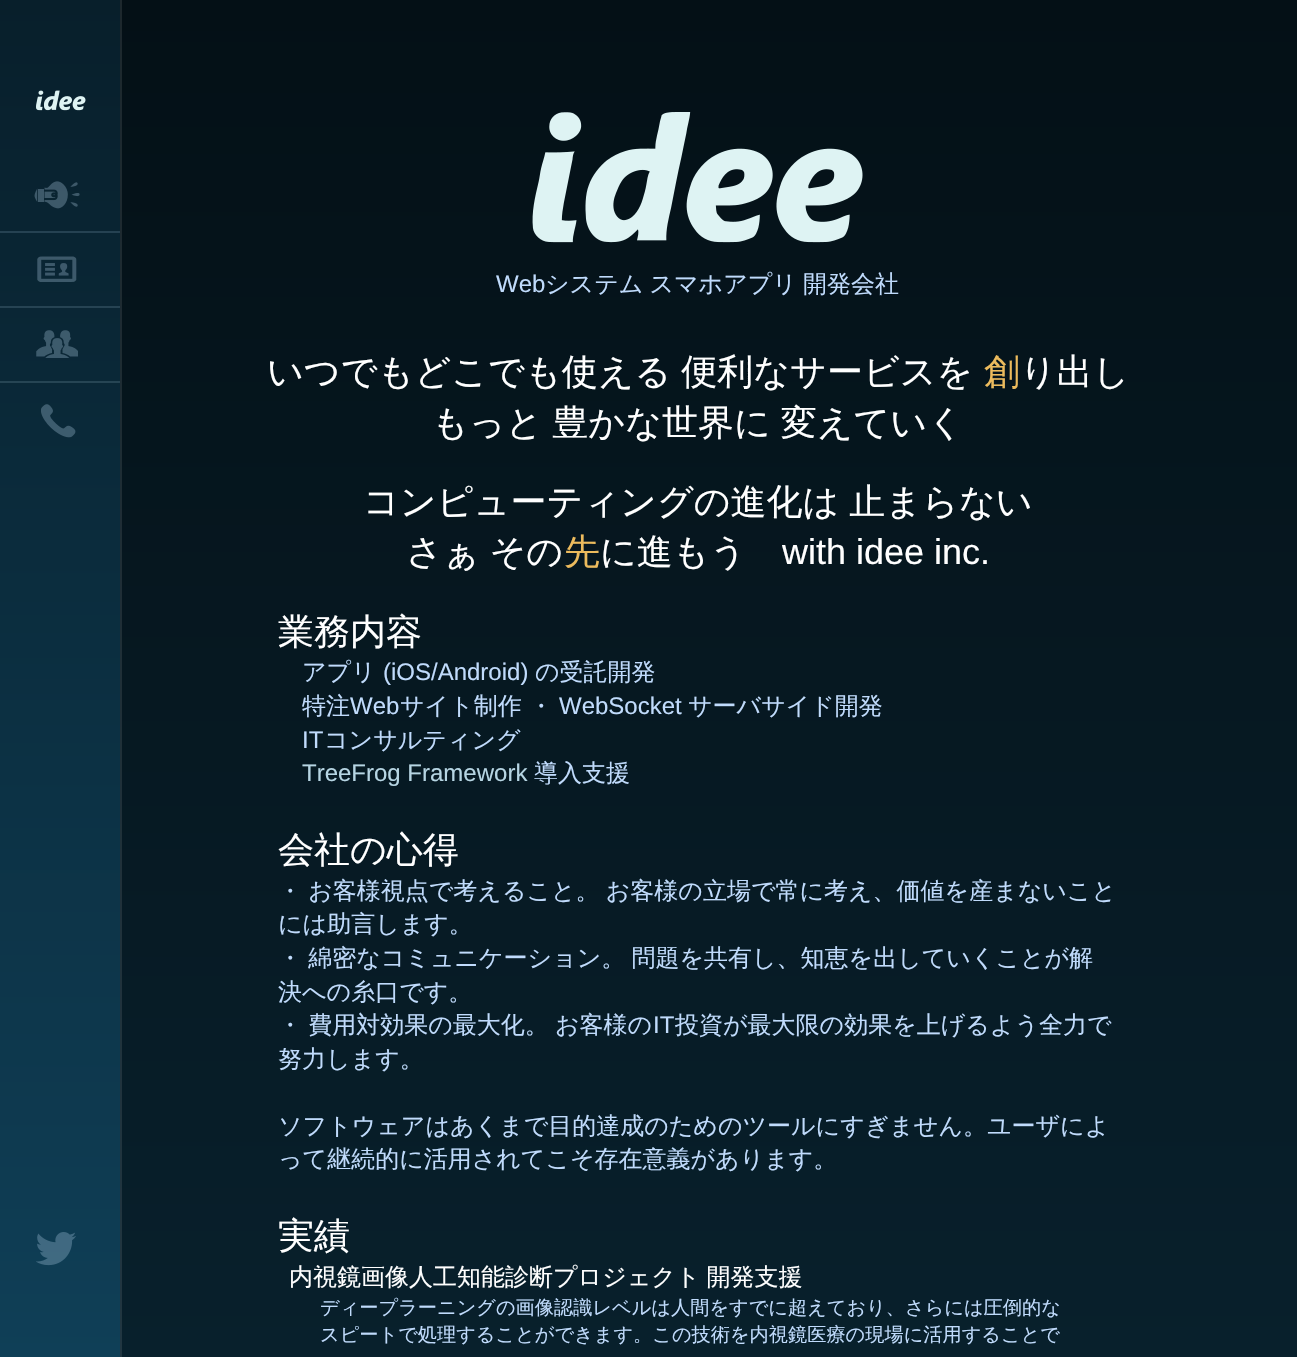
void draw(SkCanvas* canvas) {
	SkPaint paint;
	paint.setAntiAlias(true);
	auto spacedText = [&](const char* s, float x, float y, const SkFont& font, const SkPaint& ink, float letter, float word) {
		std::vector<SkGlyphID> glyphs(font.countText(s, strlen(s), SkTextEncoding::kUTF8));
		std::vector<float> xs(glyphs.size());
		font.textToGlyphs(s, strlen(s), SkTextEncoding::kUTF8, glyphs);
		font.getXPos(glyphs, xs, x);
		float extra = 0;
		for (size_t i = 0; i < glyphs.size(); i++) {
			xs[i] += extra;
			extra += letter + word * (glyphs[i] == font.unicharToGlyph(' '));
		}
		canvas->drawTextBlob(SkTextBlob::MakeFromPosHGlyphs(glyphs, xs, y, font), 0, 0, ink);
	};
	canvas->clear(0xffffffff);
	{
		const SkColor colors[] = {0xff081f2b, 0xff0f3f57};
		const float stops[] = {0, 1};
		const SkPoint ends[] = {{649, 0}, {649, 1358}};
		paint.setShader(SkGradientShader::MakeLinear(ends, colors, stops, 2, SkTileMode::kClamp));
		paint.setAlpha(255);
	}
	canvas->drawRect(SkRect::MakeXYWH(0, 0, 120, 1357), paint);
	{
		const SkColor colors[] = {0xff041016, 0xff08202c};
		const float stops[] = {0, 1};
		const SkPoint ends[] = {{649, 0}, {649, 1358}};
		paint.setShader(SkGradientShader::MakeLinear(ends, colors, stops, 2, SkTileMode::kClamp));
		paint.setAlpha(255);
	}
	canvas->drawRect(SkRect::MakeXYWH(122, 0, 1175, 1357), paint);
	{
		const SkColor colors[] = {0xff1d282d, 0xff213641};
		const float stops[] = {0, 1};
		const SkPoint ends[] = {{649, 0}, {649, 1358}};
		paint.setShader(SkGradientShader::MakeLinear(ends, colors, stops, 2, SkTileMode::kClamp));
		paint.setAlpha(255);
	}
	canvas->drawRect(SkRect::MakeXYWH(120, 0, 2, 1357), paint);
	canvas->drawImageRect(SkImages::DeferredFromEncodedData(SkData::MakeFromFileName("img1.png")), SkRect::MakeXYWH(36, 90, 50, 21), SkSamplingOptions());
	paint.setShader(nullptr);
	paint.setColor(0xff254252);
	canvas->drawRect(SkRect::MakeXYWH(0, 231, 120, 2), paint);
	canvas->drawImageRect(SkImages::DeferredFromEncodedData(SkData::MakeFromFileName("img2.png")), SkRect::MakeXYWH(34, 181, 46, 28), SkSamplingOptions());
	paint.setColor(0xff264353);
	canvas->drawRect(SkRect::MakeXYWH(0, 306, 120, 2), paint);
	canvas->drawImageRect(SkImages::DeferredFromEncodedData(SkData::MakeFromFileName("img3.png")), SkRect::MakeXYWH(37, 256, 40, 26), SkSamplingOptions());
	paint.setColor(0xff264554);
	canvas->drawRect(SkRect::MakeXYWH(0, 381, 120, 2), paint);
	canvas->drawImageRect(SkImages::DeferredFromEncodedData(SkData::MakeFromFileName("img4.png")), SkRect::MakeXYWH(36, 330, 42, 28), SkSamplingOptions());
	canvas->drawImageRect(SkImages::DeferredFromEncodedData(SkData::MakeFromFileName("img5.png")), SkRect::MakeXYWH(41, 404, 35, 34), SkSamplingOptions());
	canvas->drawImageRect(SkImages::DeferredFromEncodedData(SkData::MakeFromFileName("img6.png")), SkRect::MakeXYWH(36, 1232, 40, 34), SkSamplingOptions());
	canvas->drawImageRect(SkImages::DeferredFromEncodedData(SkData::MakeFromFileName("img7.png")), SkRect::MakeXYWH(532, 112, 331, 131), SkSamplingOptions());
	SkFont f1(fontMgr->matchFamilyStyle("Liberation Sans", SkFontStyle::Normal()), 24);
	f1.setSubpixel(true);
	paint.setColor(0xffc0dbfc);
	canvas->drawString("Web", 496, 292, f1, paint);
	SkFont f2(fontMgr->matchFamilyStyle("WenQuanYi Zen Hei", SkFontStyle(500, SkFontStyle::kNormal_Width, SkFontStyle::kUpright_Slant)), 24);
	f2.setSubpixel(true);
	spacedText("システム スマホアプリ 開発会社", 545, 292, f2, paint, 0, -1);
	SkFont f3(fontMgr->matchFamilyStyle("WenQuanYi Zen Hei", SkFontStyle(500, SkFontStyle::kNormal_Width, SkFontStyle::kUpright_Slant)), 36);
	f3.setSubpixel(true);
	paint.setColor(0xffffffff);
	spacedText("いつでもどこでも使える 便利なサービスを", 267, 384, f3, paint, 0, -1);
	paint.setColor(0xffecbb5d);
	canvas->drawString("創", 984, 384, f3, paint);
	paint.setColor(0xffffffff);
	canvas->drawString("り出し", 1020, 384, f3, paint);
	spacedText("もっと 豊かな世界に 変えていく", 432, 435, f3, paint, 0, -1);
	spacedText("コンピューティングの進化は 止まらない", 363, 514, f3, paint, 0, -1);
	spacedText("さぁ その", 406, 564, f3, paint, 0, -1);
	paint.setColor(0xffecbb5d);
	canvas->drawString("先", 564, 564, f3, paint);
	paint.setColor(0xffffffff);
	canvas->drawString("に進もう", 600, 564, f3, paint);
	SkFont f4(fontMgr->matchFamilyStyle("Liberation Sans", SkFontStyle::Normal()), 36);
	f4.setSubpixel(true);
	canvas->drawString("with idee inc.", 782, 564, f4, paint);
	canvas->drawString("業務内容", 278, 644, f3, paint);
	paint.setColor(0xffc0dbfc);
	canvas->drawString("アプリ", 302, 680, f2, paint);
	canvas->drawString("(iOS/Android)", 383, 680, f1, paint);
	canvas->drawString("の受託開発", 535, 680, f2, paint);
	canvas->drawString("特注", 302, 714, f2, paint);
	canvas->drawString("Web", 350, 714, f1, paint);
	canvas->drawString("サイト制作 ・", 400, 714, f2, paint);
	canvas->drawString("WebSocket", 559, 714, f1, paint);
	canvas->drawString("サーバサイド開発", 688, 714, f2, paint);
	canvas->drawString("IT", 302, 748, f1, paint);
	canvas->drawString("コンサルティング", 324, 748, f2, paint);
	paint.setColor(0xffb6d5e3);
	canvas->drawString("TreeFrog Framework", 302, 781, f1, paint);
	paint.setColor(0xffc0dbfc);
	canvas->drawString("導入支援", 534, 781, f2, paint);
	paint.setColor(0xffffffff);
	canvas->drawString("会社の心得", 278, 862, f3, paint);
	paint.setColor(0xffc0dbfc);
	spacedText("・ お客様視点で考えること。 お客様の立場で常に考え、価値を産まないこと", 278, 899, f2, paint, 0, -1);
	canvas->drawString("には助言します。", 278, 932, f2, paint);
	spacedText("・ 綿密なコミュニケーション。 問題を共有し、知恵を出していくことが解", 278, 966, f2, paint, 0, -1);
	canvas->drawString("決への糸口です。", 278, 1000, f2, paint);
	spacedText("・ 費用対効果の最大化。 お客様の", 278, 1033, f2, paint, 0, -1);
	canvas->drawString("IT", 653, 1033, f1, paint);
	canvas->drawString("投資が最大限の効果を上げるよう全力で", 675, 1033, f2, paint);
	canvas->drawString("努力します。", 278, 1067, f2, paint);
	canvas->drawString("ソフトウェアはあくまで目的達成のためのツールにすぎません。ユーザによ", 278, 1134, f2, paint);
	canvas->drawString("って継続的に活用されてこそ存在意義があります。", 278, 1167, f2, paint);
	paint.setColor(0xffffffff);
	canvas->drawString("実績", 278, 1248, f3, paint);
	spacedText("内視鏡画像人工知能診断プロジェクト 開発支援", 289, 1285, f2, paint, 0, -1);
	SkFont f5(fontMgr->matchFamilyStyle("WenQuanYi Zen Hei", SkFontStyle(500, SkFontStyle::kNormal_Width, SkFontStyle::kUpright_Slant)), 19.2);
	f5.setSubpixel(true);
	paint.setColor(0xffc0dbfc);
	canvas->drawString("ディープラーニングの画像認識レベルは人間をすでに超えており、さらには圧倒的な", 320, 1314, f5, paint);
	canvas->drawString("スピートで処理することができます。この技術を内視鏡医療の現場に活用することで", 320, 1341, f5, paint);
}
